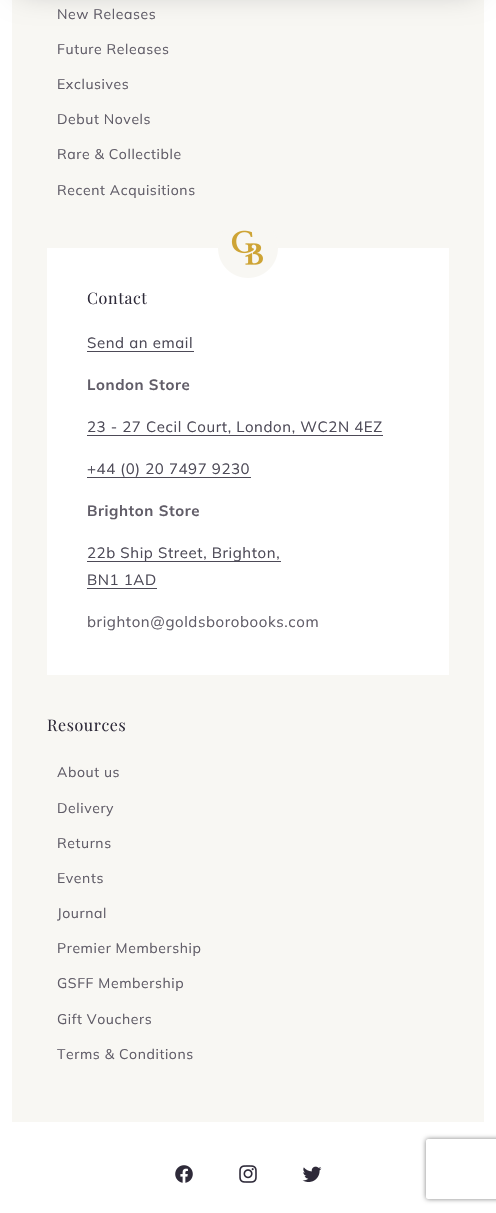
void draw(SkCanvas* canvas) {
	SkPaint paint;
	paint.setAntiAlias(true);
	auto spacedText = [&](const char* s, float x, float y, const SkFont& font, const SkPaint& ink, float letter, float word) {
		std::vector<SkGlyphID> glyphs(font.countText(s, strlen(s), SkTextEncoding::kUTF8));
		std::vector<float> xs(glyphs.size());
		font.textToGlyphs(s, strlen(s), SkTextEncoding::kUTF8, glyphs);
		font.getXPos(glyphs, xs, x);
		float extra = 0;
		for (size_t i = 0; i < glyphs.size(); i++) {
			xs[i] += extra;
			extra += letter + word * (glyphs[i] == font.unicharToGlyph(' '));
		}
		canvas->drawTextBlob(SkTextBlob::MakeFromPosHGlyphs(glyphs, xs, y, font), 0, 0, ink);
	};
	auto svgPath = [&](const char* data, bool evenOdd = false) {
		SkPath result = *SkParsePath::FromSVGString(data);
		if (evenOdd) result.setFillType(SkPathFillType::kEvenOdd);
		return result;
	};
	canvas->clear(0xffffffff);
	paint.setColor(0xfff8f7f3);
	canvas->drawRect(SkRect::MakeXYWH(12, 0, 472, 1122), paint);
	paint.setColor(0x40000000);
	paint.setMaskFilter(SkMaskFilter::MakeBlur(kNormal_SkBlurStyle, 15));
	canvas->drawRect(SkRect::MakeXYWH(20, -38, 456, 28), paint);
	paint.setMaskFilter(nullptr);
	SkFont f1(fontMgr->matchFamilyStyle("Muli", SkFontStyle::Normal()), 14);
	f1.setSubpixel(true);
	paint.setColor(0xff615d68);
	spacedText("New Releases", 57, 19, f1, paint, 0.6, 0);
	spacedText("Future Releases", 57, 54, f1, paint, 0.6, 0);
	spacedText("Exclusives", 57, 89, f1, paint, 0.6, 0);
	spacedText("Debut Novels", 57, 124, f1, paint, 0.6, 0);
	spacedText("Rare & Collectible", 57, 159, f1, paint, 0.6, 0);
	spacedText("Recent Acquisitions", 57, 195, f1, paint, 0.6, 0);
	paint.setColor(0xffffffff);
	canvas->drawRect(SkRect::MakeXYWH(47, 248, 402, 427), paint);
	canvas->drawImageRect(SkImages::DeferredFromEncodedData(SkData::MakeFromFileName("img1.png")), SkRect::MakeXYWH(218, 230, 60, 48), SkSamplingOptions());
	SkFont f2(fontMgr->matchFamilyStyle("Playfair Display", SkFontStyle::Normal()), 16);
	f2.setSubpixel(true);
	paint.setColor(0xff2e2a39);
	spacedText("Contact", 87, 304, f2, paint, 0.6, 0);
	SkFont f3(fontMgr->matchFamilyStyle("Muli", SkFontStyle::Normal()), 15);
	f3.setSubpixel(true);
	paint.setColor(0xff4d4a57);
	spacedText("Send an email", 87, 348, f3, paint, 0.6, 0);
	canvas->drawRect(SkRect::MakeXYWH(87, 351, 107, 1), paint);
	SkFont f4(fontMgr->matchFamilyStyle("Muli", SkFontStyle::Bold()), 15);
	f4.setSubpixel(true);
	paint.setColor(0xff615d68);
	spacedText("London Store", 87, 390, f4, paint, 0.6, 0);
	paint.setColor(0xff4d4a57);
	spacedText("23 - 27 Cecil Court, London, WC2N 4EZ", 87, 432, f3, paint, 0.6, 0);
	canvas->drawRect(SkRect::MakeXYWH(87, 435, 296, 1), paint);
	spacedText("+44 (0) 20 7497 9230", 87, 474, f3, paint, 0.6, 0);
	canvas->drawRect(SkRect::MakeXYWH(87, 477, 164, 1), paint);
	paint.setColor(0xff615d68);
	spacedText("Brighton Store", 87, 516, f4, paint, 0.6, 0);
	paint.setColor(0xff4d4a57);
	canvas->drawRect(SkRect::MakeXYWH(87, 561, 194, 1), paint);
	spacedText("22b Ship Street, Brighton,", 87, 558, f3, paint, 0.6, 0);
	spacedText("BN1 1AD", 87, 585, f3, paint, 0.6, 0);
	canvas->drawRect(SkRect::MakeXYWH(87, 588, 70, 1), paint);
	paint.setColor(0xff615d68);
	spacedText("brighton@goldsborobooks.com", 87, 627, f3, paint, 0.6, 0);
	paint.setColor(0xff2e2a39);
	spacedText("Resources", 47, 731, f2, paint, 0.6, 0);
	paint.setColor(0xff615d68);
	spacedText("About us", 57, 777, f1, paint, 0.6, 0);
	spacedText("Delivery", 57, 813, f1, paint, 0.6, 0);
	spacedText("Returns", 57, 848, f1, paint, 0.6, 0);
	spacedText("Events", 57, 883, f1, paint, 0.6, 0);
	spacedText("Journal", 57, 918, f1, paint, 0.6, 0);
	spacedText("Premier Membership", 57, 953, f1, paint, 0.6, 0);
	spacedText("GSFF Membership", 57, 988, f1, paint, 0.6, 0);
	spacedText("Gift Vouchers", 57, 1024, f1, paint, 0.6, 0);
	spacedText("Terms & Conditions", 57, 1059, f1, paint, 0.6, 0);
	canvas->drawImageRect(SkImages::DeferredFromEncodedData(SkData::MakeFromFileName("img2.png")), SkRect::MakeXYWH(175, 1165, 18, 18), SkSamplingOptions());
	canvas->drawImageRect(SkImages::DeferredFromEncodedData(SkData::MakeFromFileName("img3.png")), SkRect::MakeXYWH(239, 1165, 18, 18), SkSamplingOptions());
	canvas->drawImageRect(SkImages::DeferredFromEncodedData(SkData::MakeFromFileName("img4.png")), SkRect::MakeXYWH(302, 1166, 20, 16), SkSamplingOptions());
	canvas->save();
	canvas->clipPath(svgPath("M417 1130H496V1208H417ZM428 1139H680C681 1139 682 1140 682 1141V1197C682 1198 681 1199 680 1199H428C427 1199 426 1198 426 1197V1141C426 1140 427 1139 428 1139Z", true), true);
	paint.setColor(0xff808080);
	paint.setMaskFilter(SkMaskFilter::MakeBlur(kNormal_SkBlurStyle, 2.5));
	canvas->drawRoundRect(SkRect::MakeXYWH(426, 1139, 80, 60), 2, 2, paint);
	paint.setMaskFilter(nullptr);
	canvas->restore();
}
